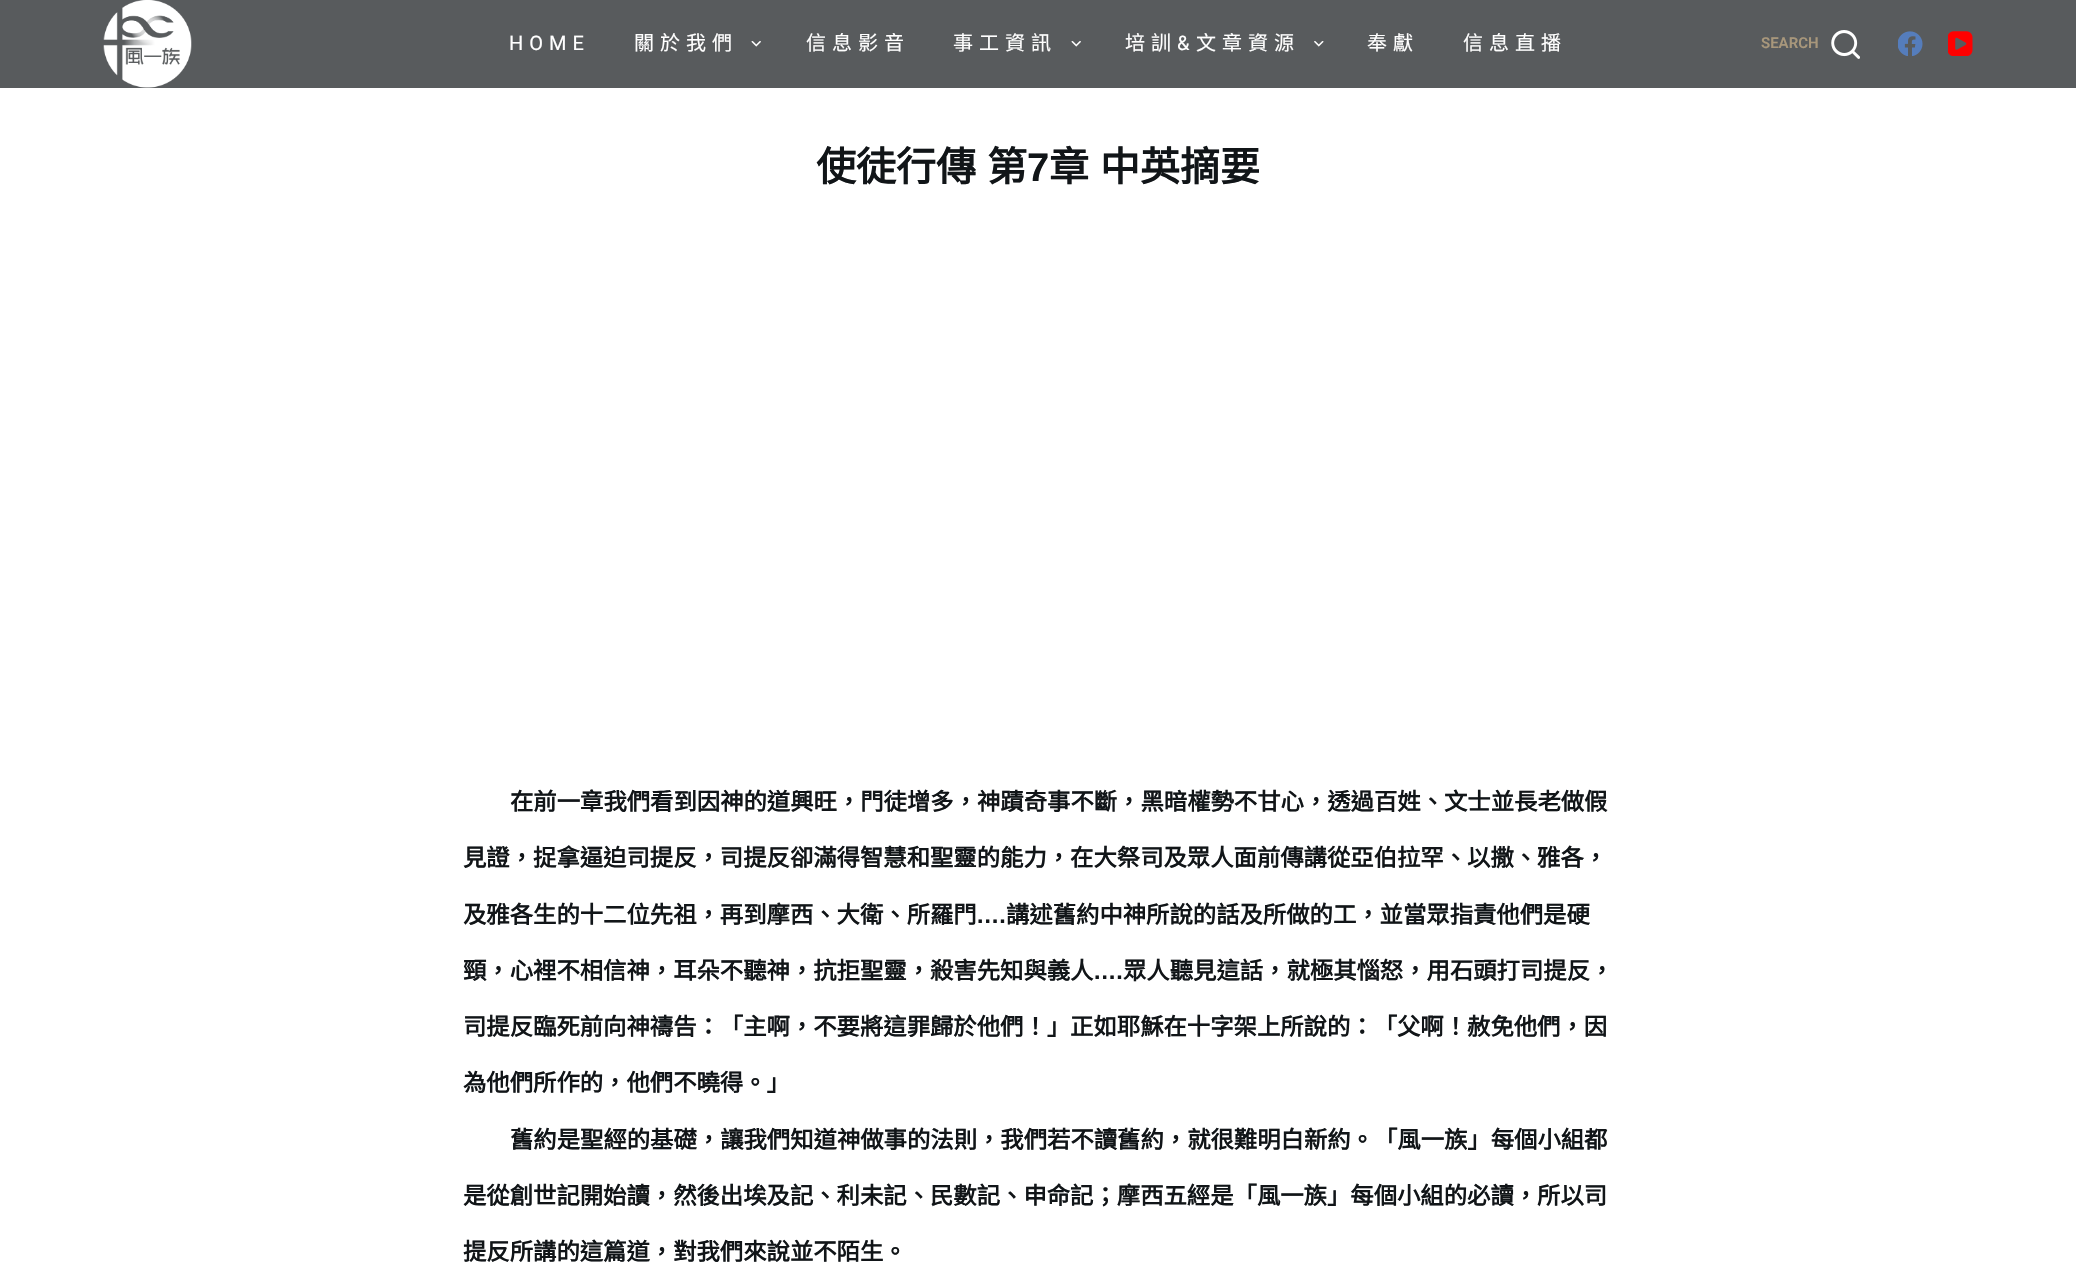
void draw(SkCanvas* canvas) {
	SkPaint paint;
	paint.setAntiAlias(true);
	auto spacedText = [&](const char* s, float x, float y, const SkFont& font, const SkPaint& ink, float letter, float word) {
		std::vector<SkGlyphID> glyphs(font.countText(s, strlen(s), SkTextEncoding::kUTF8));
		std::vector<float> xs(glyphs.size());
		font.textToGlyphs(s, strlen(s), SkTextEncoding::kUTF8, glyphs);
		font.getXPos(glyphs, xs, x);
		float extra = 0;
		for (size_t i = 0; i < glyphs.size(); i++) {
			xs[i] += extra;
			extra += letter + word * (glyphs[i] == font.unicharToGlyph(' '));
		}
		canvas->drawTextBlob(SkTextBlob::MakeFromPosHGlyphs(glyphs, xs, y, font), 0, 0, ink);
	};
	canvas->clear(0xffffffff);
	paint.setColor(0xb3111518);
	canvas->drawRect(SkRect::MakeXYWH(0, 0, 2076, 88), paint);
	canvas->drawImageRect(SkImages::DeferredFromEncodedData(SkData::MakeFromFileName("img1.png")), SkRect::MakeXYWH(103, 0, 89, 88), SkSamplingOptions());
	SkFont f1(fontMgr->matchFamilyStyle("Roboto", SkFontStyle::Normal()), 20);
	f1.setSubpixel(true);
	paint.setColor(0xffffffff);
	spacedText("HOME", 509, 50, f1, paint, 6, 0);
	SkFont f2(fontMgr->matchFamilyStyle("Noto Sans CJK TC", SkFontStyle::Normal()), 20);
	f2.setSubpixel(true);
	spacedText("關於我們", 634, 50, f2, paint, 6, 0);
	canvas->drawImageRect(SkImages::DeferredFromEncodedData(SkData::MakeFromFileName("img2.png")), SkRect::MakeXYWH(751, 41, 10, 6), SkSamplingOptions());
	spacedText("信息影音", 806, 50, f2, paint, 6, 0);
	spacedText("事工資訊", 953, 50, f2, paint, 6, 0);
	canvas->drawImageRect(SkImages::DeferredFromEncodedData(SkData::MakeFromFileName("img2.png")), SkRect::MakeXYWH(1071, 41, 10, 6), SkSamplingOptions());
	spacedText("培訓", 1125, 50, f2, paint, 6, 0);
	spacedText("&", 1177, 50, f1, paint, 6, 0);
	spacedText("文章資源", 1196, 50, f2, paint, 6, 0);
	canvas->drawImageRect(SkImages::DeferredFromEncodedData(SkData::MakeFromFileName("img3.png")), SkRect::MakeXYWH(1314, 41, 10, 6), SkSamplingOptions());
	spacedText("奉獻", 1367, 50, f2, paint, 6, 0);
	spacedText("信息直播", 1463, 50, f2, paint, 6, 0);
	SkFont f3(fontMgr->matchFamilyStyle("Roboto", SkFontStyle(600, SkFontStyle::kNormal_Width, SkFontStyle::kUpright_Slant)), 15);
	f3.setSubpixel(true);
	paint.setColor(0xffa8977b);
	canvas->drawString("SEARCH", 1761, 48, f3, paint);
	canvas->drawImageRect(SkImages::DeferredFromEncodedData(SkData::MakeFromFileName("img4.png")), SkRect::MakeXYWH(1831, 30, 29, 29), SkSamplingOptions());
	canvas->drawImageRect(SkImages::DeferredFromEncodedData(SkData::MakeFromFileName("img5.png")), SkRect::MakeXYWH(1898, 31, 25, 25), SkSamplingOptions());
	canvas->drawImageRect(SkImages::DeferredFromEncodedData(SkData::MakeFromFileName("img6.png")), SkRect::MakeXYWH(1948, 31, 25, 25), SkSamplingOptions());
	SkFont f4(fontMgr->matchFamilyStyle("Noto Sans CJK TC", SkFontStyle::Bold()), 40);
	f4.setSubpixel(true);
	paint.setColor(0xff111518);
	spacedText("使徒行傳 第", 816, 181, f4, paint, 0, 2);
	SkFont f5(fontMgr->matchFamilyStyle("Liberation Sans", SkFontStyle::Bold()), 40);
	f5.setSubpixel(true);
	canvas->drawString("7", 1027, 181, f5, paint);
	spacedText("章 中英摘要", 1049, 181, f4, paint, 0, 2);
	SkFont f6(fontMgr->matchFamilyStyle("Noto Sans CJK TC", SkFontStyle::Bold()), 23.35);
	f6.setSubpixel(true);
	canvas->drawString("在前一章我們看到因神的道興旺，門徒增多，神蹟奇事不斷，黑暗權勢不甘心，透過百姓、文士並長老做假", 510, 810, f6, paint);
	canvas->drawString("見證，捉拿逼迫司提反，司提反卻滿得智慧和聖靈的能力，在大祭司及眾人面前傳講從亞伯拉罕、以撒、雅各，", 463, 866, f6, paint);
	canvas->drawString("及雅各生的十二位先祖，再到摩西、大衛、所羅門", 463, 923, f6, paint);
	SkFont f7(fontMgr->matchFamilyStyle("Liberation Sans", SkFontStyle::Bold()), 23.35);
	f7.setSubpixel(true);
	canvas->drawString("….", 976, 923, f7, paint);
	canvas->drawString("講述舊約中神所說的話及所做的工，並當眾指責他們是硬", 1006, 923, f6, paint);
	canvas->drawString("頸，心裡不相信神，耳朵不聽神，抗拒聖靈，殺害先知與義人", 463, 979, f6, paint);
	canvas->drawString("….", 1093, 979, f7, paint);
	canvas->drawString("眾人聽見這話，就極其惱怒，用石頭打司提反，", 1123, 979, f6, paint);
	canvas->drawString("司提反臨死前向神禱告：「主啊，不要將這罪歸於他們！」正如耶穌在十字架上所說的：「父啊！赦免他們，因", 463, 1035, f6, paint);
	canvas->drawString("為他們所作的，他們不曉得。」", 463, 1091, f6, paint);
	canvas->drawString("舊約是聖經的基礎，讓我們知道神做事的法則，我們若不讀舊約，就很難明白新約。「風一族」每個小組都", 510, 1148, f6, paint);
	canvas->drawString("是從創世記開始讀，然後出埃及記、利未記、民數記、申命記；摩西五經是「風一族」每個小組的必讀，所以司", 463, 1204, f6, paint);
	canvas->drawString("提反所講的這篇道，對我們來說並不陌生。", 463, 1260, f6, paint);
}
